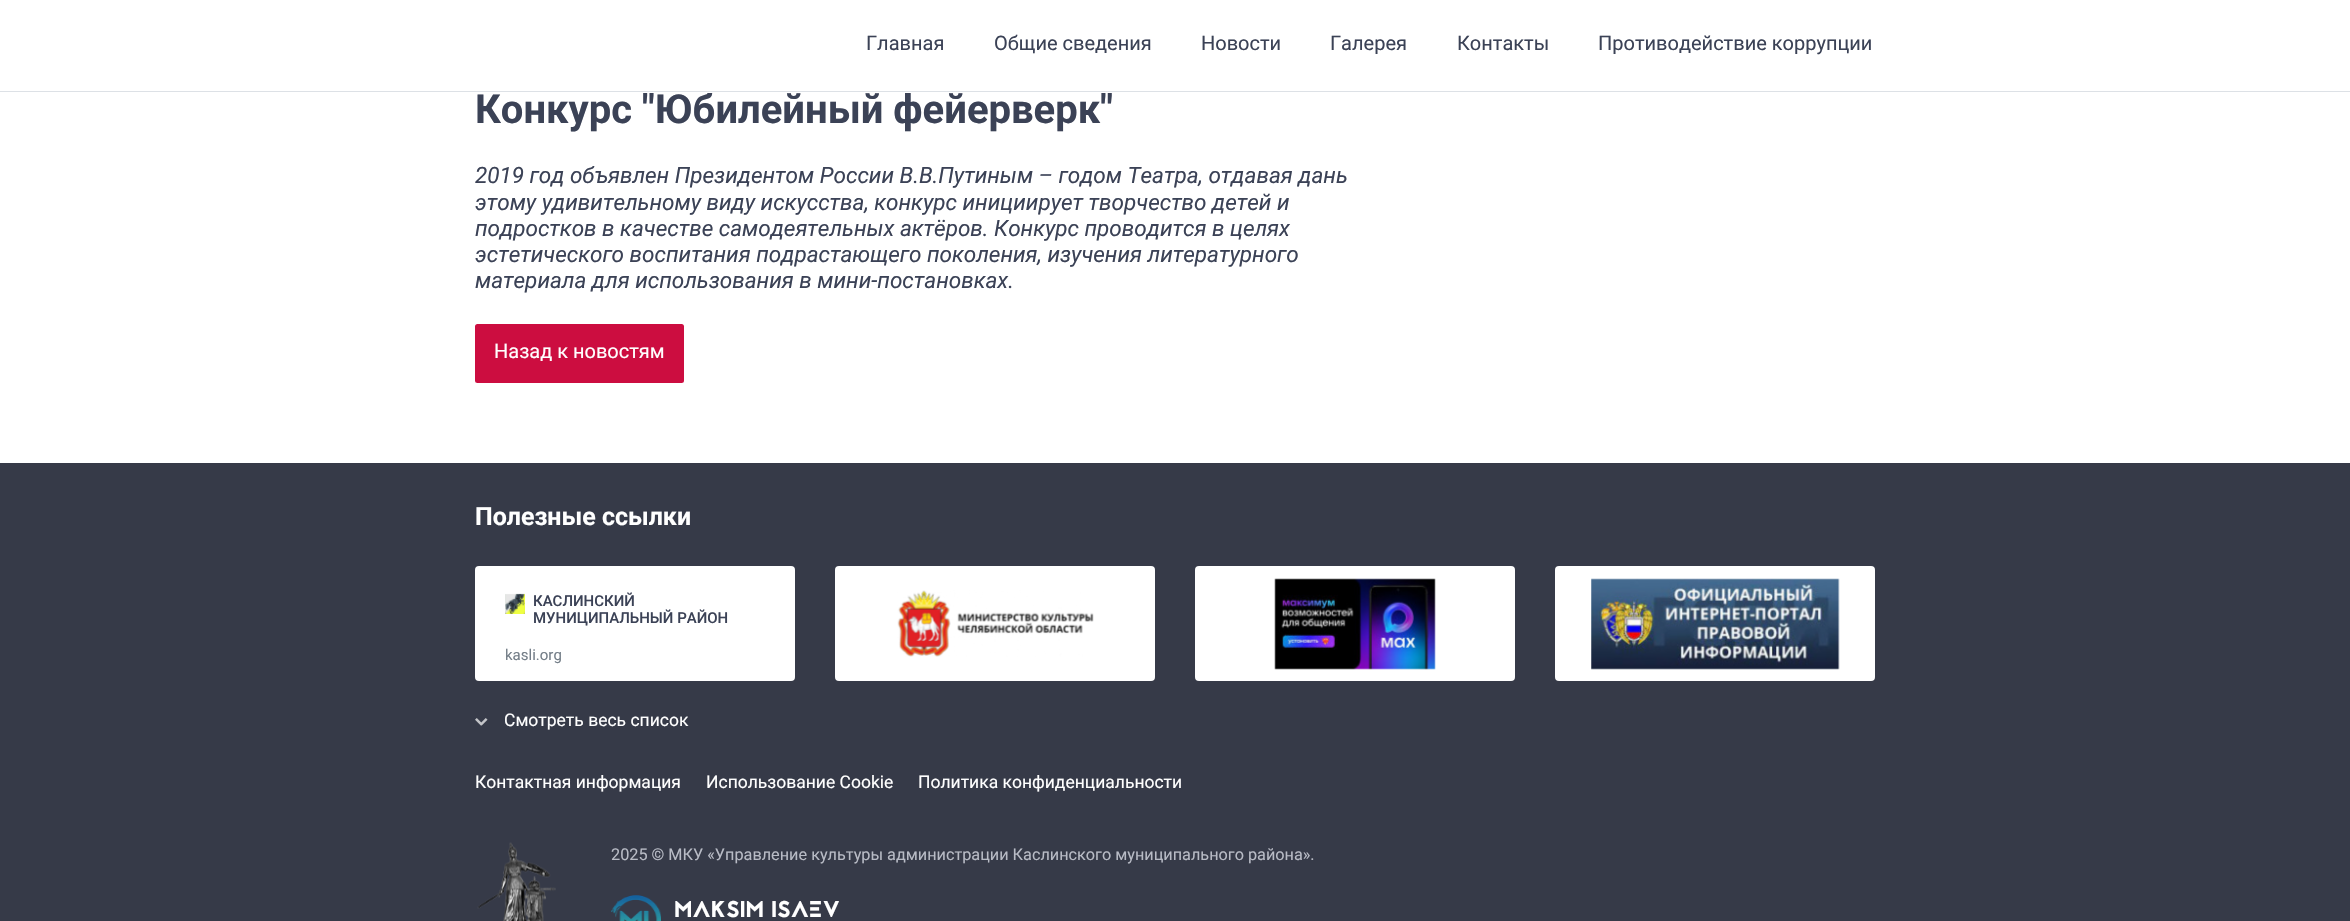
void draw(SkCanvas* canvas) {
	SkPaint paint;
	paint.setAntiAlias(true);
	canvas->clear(0xffffffff);
	SkFont f1(fontMgr->matchFamilyStyle("Roboto", SkFontStyle::Bold()), 40);
	f1.setSubpixel(true);
	paint.setColor(0xff3b4256);
	canvas->drawString("Конкурс \"Юбилейный фейерверк\"", 475, 123, f1, paint);
	paint.setColor(0xffffffff);
	canvas->drawRect(SkRect::MakeXYWH(707, 92, 6, 1), paint);
	paint.setColor(0xffdde1e6);
	canvas->drawRect(SkRect::MakeXYWH(0, 91, 2350, 1), paint);
	SkFont f2(fontMgr->matchFamilyStyle("Roboto", SkFontStyle::Normal()), 20);
	f2.setSubpixel(true);
	paint.setColor(0xff3b4256);
	canvas->drawString("Главная", 866, 50, f2, paint);
	canvas->drawString("Общие сведения", 994, 50, f2, paint);
	canvas->drawString("Новости", 1201, 50, f2, paint);
	canvas->drawString("Галерея", 1330, 50, f2, paint);
	canvas->drawString("Контакты", 1457, 50, f2, paint);
	canvas->drawString("Противодействие коррупции", 1598, 50, f2, paint);
	SkFont f3(fontMgr->matchFamilyStyle("Roboto", SkFontStyle::Italic()), 22.5);
	f3.setSubpixel(true);
	canvas->drawString("2019 год объявлен Президентом России В.В.Путиным – годом Театра, отдавая дань", 475, 183, f3, paint);
	canvas->drawString("этому удивительному виду искусства, конкурс инициирует творчество детей и", 475, 210, f3, paint);
	canvas->drawString("подростков в качестве самодеятельных актёров. Конкурс проводится в целях", 475, 236, f3, paint);
	canvas->drawString("эстетического воспитания подрастающего поколения, изучения литературного", 475, 262, f3, paint);
	canvas->drawString("материала для использования в мини-постановках.", 475, 288, f3, paint);
	paint.setColor(0xffcc0d40);
	canvas->drawRoundRect(SkRect::MakeXYWH(475, 324, 209, 59), 2.5, 2.5, paint);
	paint.setColor(0xffffffff);
	canvas->drawString("Назад к новостям", 494, 358, f2, paint);
	paint.setColor(0xff363a48);
	canvas->drawRect(SkRect::MakeXYWH(0, 463, 2350, 458), paint);
	SkFont f4(fontMgr->matchFamilyStyle("Roboto", SkFontStyle::Bold()), 25);
	f4.setSubpixel(true);
	paint.setColor(0xffffffff);
	canvas->drawString("Полезные ссылки", 475, 525, f4, paint);
	canvas->drawRoundRect(SkRect::MakeXYWH(475, 566, 320, 115), 4, 4, paint);
	canvas->drawImageRect(SkImages::DeferredFromEncodedData(SkData::MakeFromFileName("img1.png")), SkRect::MakeXYWH(505, 593, 20, 21), SkSamplingOptions());
	SkFont f5(fontMgr->matchFamilyStyle("Roboto", SkFontStyle(500, SkFontStyle::kNormal_Width, SkFontStyle::kUpright_Slant)), 15);
	f5.setSubpixel(true);
	paint.setColor(0xff3b4256);
	canvas->drawString("КАСЛИНСКИЙ", 533, 606, f5, paint);
	canvas->drawString("МУНИЦИПАЛЬНЫЙ РАЙОН", 533, 623, f5, paint);
	SkFont f6(fontMgr->matchFamilyStyle("Roboto", SkFontStyle::Normal()), 15);
	f6.setSubpixel(true);
	paint.setColor(0xff747e88);
	canvas->drawString("kasli.org", 505, 660, f6, paint);
	paint.setColor(0xffffffff);
	canvas->drawRoundRect(SkRect::MakeXYWH(835, 566, 320, 115), 4, 4, paint);
	canvas->drawImageRect(SkImages::DeferredFromEncodedData(SkData::MakeFromFileName("img2.png")), SkRect::MakeXYWH(897, 590, 197, 67), SkSamplingOptions());
	canvas->drawRoundRect(SkRect::MakeXYWH(1195, 566, 320, 115), 4, 4, paint);
	canvas->drawImageRect(SkImages::DeferredFromEncodedData(SkData::MakeFromFileName("img3.png")), SkRect::MakeXYWH(1274, 578, 162, 92), SkSamplingOptions());
	canvas->drawRoundRect(SkRect::MakeXYWH(1555, 566, 320, 115), 4, 4, paint);
	canvas->drawImageRect(SkImages::DeferredFromEncodedData(SkData::MakeFromFileName("img4.png")), SkRect::MakeXYWH(1591, 578, 249, 92), SkSamplingOptions());
	canvas->drawImageRect(SkImages::DeferredFromEncodedData(SkData::MakeFromFileName("img5.png")), SkRect::MakeXYWH(475, 718, 13, 8), SkSamplingOptions());
	SkFont f7(fontMgr->matchFamilyStyle("Roboto", SkFontStyle::Normal()), 17.5);
	f7.setSubpixel(true);
	canvas->drawString("Смотреть весь список", 504, 726, f7, paint);
	canvas->drawString("Контактная информация", 475, 788, f7, paint);
	canvas->drawString("Использование Cookie", 706, 788, f7, paint);
	canvas->drawString("Политика конфиденциальности", 918, 788, f7, paint);
	canvas->drawImageRect(SkImages::DeferredFromEncodedData(SkData::MakeFromFileName("img6.png")), SkRect::MakeXYWH(477, 842, 79, 79), SkSamplingOptions());
	SkFont f8(fontMgr->matchFamilyStyle("Roboto", SkFontStyle::Normal()), 16.25);
	f8.setSubpixel(true);
	paint.setColor(0xffb8bbc5);
	canvas->drawString("2025 © МКУ «Управление культуры администрации Каслинского муниципального района».", 611, 860, f8, paint);
	canvas->drawImageRect(SkImages::DeferredFromEncodedData(SkData::MakeFromFileName("img7.png")), SkRect::MakeXYWH(611, 895, 50, 26), SkSamplingOptions());
	SkFont f9(fontMgr->matchFamilyStyle("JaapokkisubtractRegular", SkFontStyle::Normal()), 22.75);
	f9.setSubpixel(true);
	paint.setColor(0xffffffff);
	canvas->drawString("MAKSIM ISAEV", 674, 917, f9, paint);
}
